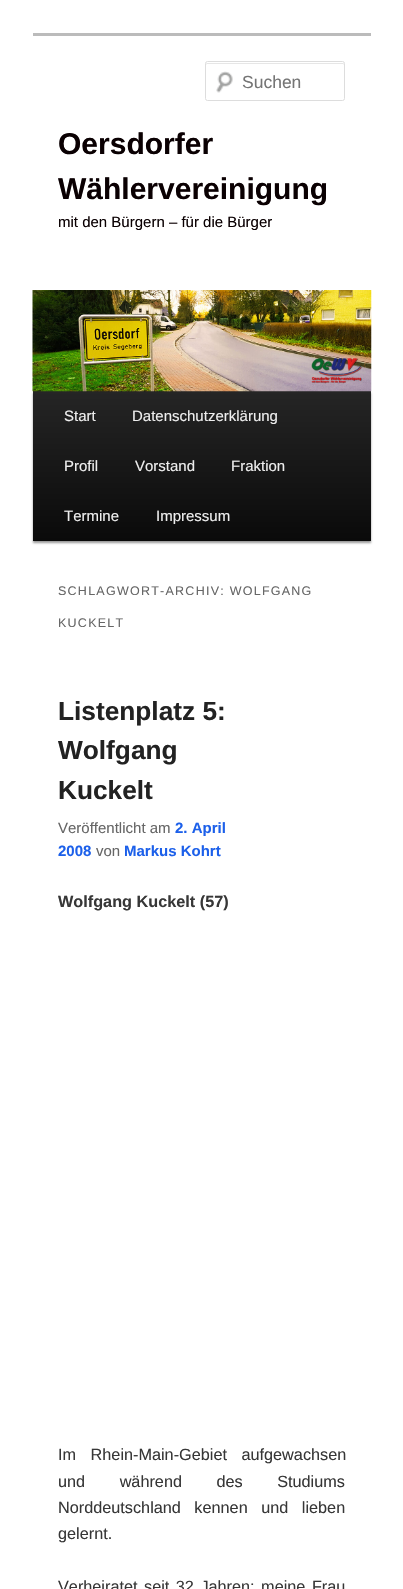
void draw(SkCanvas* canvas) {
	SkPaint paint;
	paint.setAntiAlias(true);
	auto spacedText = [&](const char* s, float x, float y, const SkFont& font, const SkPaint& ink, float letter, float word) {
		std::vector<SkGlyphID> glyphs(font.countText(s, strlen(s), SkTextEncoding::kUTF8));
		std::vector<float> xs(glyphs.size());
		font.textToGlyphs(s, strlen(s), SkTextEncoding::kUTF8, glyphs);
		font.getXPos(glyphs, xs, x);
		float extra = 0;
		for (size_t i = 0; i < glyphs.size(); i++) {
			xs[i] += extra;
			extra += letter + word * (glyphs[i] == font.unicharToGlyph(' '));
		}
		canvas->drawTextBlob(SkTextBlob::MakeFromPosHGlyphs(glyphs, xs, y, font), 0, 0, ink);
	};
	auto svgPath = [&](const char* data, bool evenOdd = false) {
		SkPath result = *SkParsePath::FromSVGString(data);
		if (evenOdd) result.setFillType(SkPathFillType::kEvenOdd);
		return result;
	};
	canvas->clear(0xffffffff);
	paint.setColor(0xffbbbbbb);
	canvas->drawRect(SkRect::MakeXYWH(33, 33, 338, 3), paint);
	canvas->drawImageRect(SkImages::DeferredFromEncodedData(SkData::MakeFromFileName("img1.png")), SkRect::MakeXYWH(216, 71, 17, 22), SkSamplingOptions());
	paint.setColor(0xffe6e6e6);
	canvas->drawPath(svgPath("M208 64H342C343 64 344 64 344 65C344 64 344 63 343 63H207C206 63 206 64 206 65C206 64 207 64 208 64Z"), paint);
	paint.setStroke(true);
	paint.setStrokeWidth(1);
	paint.setColor(0xffdddddd);
	canvas->drawRoundRect(SkRect::MakeXYWH(205.5, 61.5, 139, 39), 2, 2, paint);
	SkFont f1(fontMgr->matchFamilyStyle("Liberation Sans", SkFontStyle::Normal()), 17.5);
	f1.setSubpixel(true);
	paint.setStroke(false);
	paint.setColor(0xff757575);
	canvas->drawString("Suchen", 242, 88, f1, paint);
	SkFont f2(fontMgr->matchFamilyStyle("Liberation Sans", SkFontStyle::Bold()), 30);
	f2.setSubpixel(true);
	paint.setColor(0xff0a0002);
	canvas->drawString("Oersdorfer", 58, 154, f2, paint);
	canvas->drawString("Wählervereinigung", 58, 199, f2, paint);
	SkFont f3(fontMgr->matchFamilyStyle("Liberation Sans", SkFontStyle::Normal()), 15);
	f3.setSubpixel(true);
	canvas->drawString("mit den Bürgern – für die Bürger", 58, 227, f3, paint);
	paint.setColor(0x66000000);
	paint.setMaskFilter(SkMaskFilter::MakeBlur(kNormal_SkBlurStyle, 1));
	canvas->drawRect(SkRect::MakeXYWH(33, 393, 338, 150), paint);
	paint.setMaskFilter(nullptr);
	{
		const SkColor colors[] = {0xff252525, 0xff0a0a0a};
		const float stops[] = {0, 1};
		const SkPoint ends[] = {{202, 391}, {202, 541}};
		paint.setShader(SkGradientShader::MakeLinear(ends, colors, stops, 2, SkTileMode::kClamp));
		paint.setAlpha(255);
	}
	canvas->drawRect(SkRect::MakeXYWH(33, 391, 338, 150), paint);
	canvas->drawImageRect(SkImages::DeferredFromEncodedData(SkData::MakeFromFileName("img2.png")), SkRect::MakeXYWH(32, 290, 340, 102), SkSamplingOptions());
	paint.setShader(nullptr);
	paint.setColor(0xffeeeeee);
	canvas->drawString("Start", 64, 421, f3, paint);
	canvas->drawString("Datenschutzerklärung", 132, 421, f3, paint);
	canvas->drawString("Profil", 64, 471, f3, paint);
	canvas->drawString("Vorstand", 135, 471, f3, paint);
	canvas->drawString("Fraktion", 231, 471, f3, paint);
	canvas->drawString("Termine", 64, 521, f3, paint);
	canvas->drawString("Impressum", 156, 521, f3, paint);
	SkFont f4(fontMgr->matchFamilyStyle("Liberation Sans", SkFontStyle::Normal()), 12.5);
	f4.setSubpixel(true);
	paint.setColor(0xff666666);
	spacedText("SCHLAGWORT-ARCHIV: WOLFGANG", 58, 595, f4, paint, 1.25, 0);
	spacedText("KUCKELT", 58, 627, f4, paint, 1.25, 0);
	SkFont f5(fontMgr->matchFamilyStyle("Liberation Sans", SkFontStyle::Bold()), 26.25);
	f5.setSubpixel(true);
	paint.setColor(0xff222222);
	canvas->drawString("Listenplatz 5:", 58, 720, f5, paint);
	canvas->drawString("Wolfgang", 58, 759, f5, paint);
	canvas->drawString("Kuckelt", 58, 799, f5, paint);
	paint.setColor(0xff666666);
	canvas->drawString("Veröffentlicht am", 58, 833, f3, paint);
	SkFont f6(fontMgr->matchFamilyStyle("Liberation Sans", SkFontStyle::Bold()), 15);
	f6.setSubpixel(true);
	paint.setColor(0xff1c60ea);
	canvas->drawString("2. April", 175, 833, f6, paint);
	canvas->drawString("2008", 58, 856, f6, paint);
	paint.setColor(0xff666666);
	canvas->drawString("von", 96, 856, f3, paint);
	paint.setColor(0xff1c60ea);
	canvas->drawString("Markus Kohrt", 124, 856, f6, paint);
	SkFont f7(fontMgr->matchFamilyStyle("Liberation Sans", SkFontStyle::Bold()), 16.25);
	f7.setSubpixel(true);
	paint.setColor(0xff373737);
	canvas->drawString("Wolfgang Kuckelt (57)", 58, 907, f7, paint);
	SkFont f8(fontMgr->matchFamilyStyle("Liberation Sans", SkFontStyle::Normal()), 16.25);
	f8.setSubpixel(true);
	spacedText("Im Rhein-Main-Gebiet aufgewachsen", 58, 1460, f8, paint, 0, 10);
	spacedText("und während des Studiums", 58, 1487, f8, paint, 0, 30);
	spacedText("Norddeutschland kennen und lieben", 58, 1513, f8, paint, 0, 9);
	canvas->drawString("gelernt.", 58, 1539, f8, paint);
	spacedText("Verheiratet seit 32 Jahren; meine Frau", 58, 1592, f8, paint, 0, 2);
}
